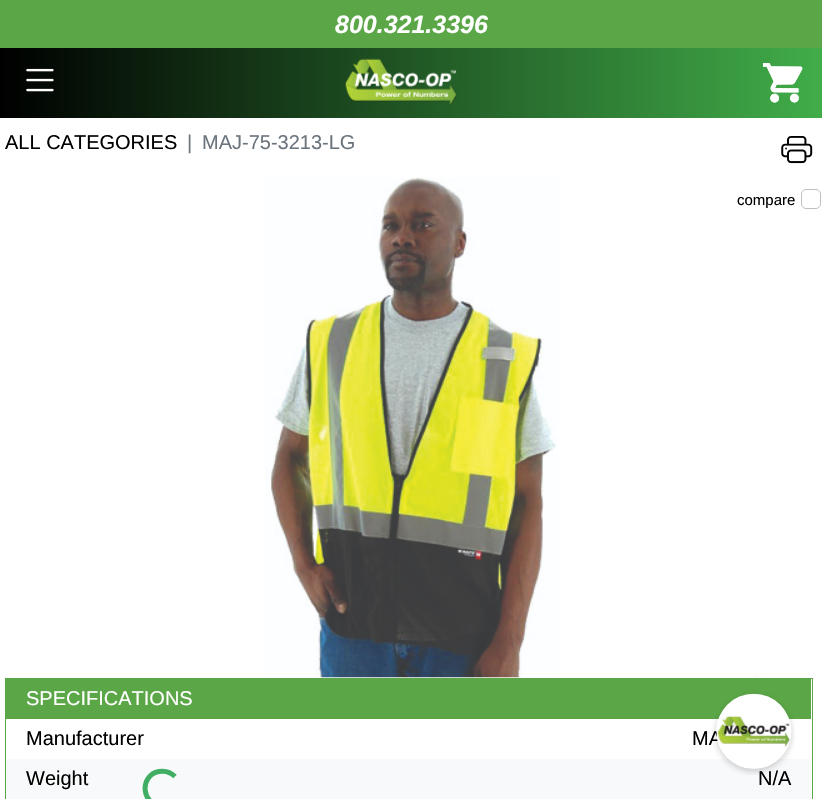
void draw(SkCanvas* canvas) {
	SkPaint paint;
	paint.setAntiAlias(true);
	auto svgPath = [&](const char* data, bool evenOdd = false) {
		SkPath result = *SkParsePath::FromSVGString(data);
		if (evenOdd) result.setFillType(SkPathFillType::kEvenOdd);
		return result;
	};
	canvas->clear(0xffffffff);
	paint.setColor(0xff5ba747);
	canvas->drawRect(SkRect::MakeXYWH(0, 0, 822, 48), paint);
	SkFont f1(fontMgr->matchFamilyStyle("Liberation Sans", SkFontStyle::BoldItalic()), 25);
	f1.setSubpixel(true);
	paint.setColor(0xffffffff);
	canvas->drawString("800.321.3396", 335, 33, f1, paint);
	{
		const SkColor colors[] = {0xff000000, 0xff41ad49};
		const float stops[] = {0, 1};
		const SkPoint ends[] = {{0, 83}, {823, 82}};
		paint.setShader(SkGradientShader::MakeLinear(ends, colors, stops, 2, SkTileMode::kClamp));
		paint.setAlpha(255);
	}
	canvas->drawRect(SkRect::MakeXYWH(0, 48, 822, 70), paint);
	canvas->drawImageRect(SkImages::DeferredFromEncodedData(SkData::MakeFromFileName("img1.png")), SkRect::MakeXYWH(26, 68, 28, 24), SkSamplingOptions());
	canvas->drawImageRect(SkImages::DeferredFromEncodedData(SkData::MakeFromFileName("img2.png")), SkRect::MakeXYWH(345, 58, 112, 48), SkSamplingOptions());
	canvas->drawImageRect(SkImages::DeferredFromEncodedData(SkData::MakeFromFileName("img3.png")), SkRect::MakeXYWH(763, 63, 40, 40), SkSamplingOptions());
	SkFont f2(fontMgr->matchFamilyStyle("Liberation Sans", SkFontStyle::Normal()), 20);
	f2.setSubpixel(true);
	paint.setShader(nullptr);
	paint.setColor(0xff000000);
	canvas->drawString("ALL CATEGORIES", 5, 149, f2, paint);
	paint.setColor(0xff6c757d);
	canvas->drawString("|", 187, 149, f2, paint);
	canvas->drawString("MAJ-75-3213-LG", 202, 149, f2, paint);
	canvas->drawImageRect(SkImages::DeferredFromEncodedData(SkData::MakeFromFileName("img4.png")), SkRect::MakeXYWH(781, 136, 32, 28), SkSamplingOptions());
	canvas->drawImageRect(SkImages::DeferredFromEncodedData(SkData::MakeFromFileName("img5.png")), SkRect::MakeXYWH(265, 177, 293, 501), SkSamplingOptions());
	SkFont f3(fontMgr->matchFamilyStyle("Liberation Sans", SkFontStyle::Normal()), 15);
	f3.setSubpixel(true);
	paint.setColor(0xff000000);
	canvas->drawString("compare", 737, 205, f3, paint);
	paint.setStroke(true);
	paint.setStrokeWidth(1);
	paint.setColor(0xffbfbfbf);
	canvas->drawRoundRect(SkRect::MakeXYWH(801.5, 189.5, 19, 19), 4.5, 4.5, paint);
	paint.setColor(0xff5ba747);
	canvas->drawRect(SkRect::MakeXYWH(5.5, 678.5, 807, 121), paint);
	paint.setStroke(false);
	canvas->drawRect(SkRect::MakeXYWH(6, 679, 805, 40), paint);
	paint.setColor(0xffffffff);
	canvas->drawString("SPECIFICATIONS", 26, 705, f2, paint);
	paint.setColor(0xff000000);
	canvas->drawString("Manufacturer", 26, 745, f2, paint);
	canvas->drawString("MA", 692, 745, f2, paint);
	paint.setColor(0xfff8f9fa);
	canvas->drawRect(SkRect::MakeXYWH(6, 759, 805, 40), paint);
	paint.setColor(0xff000000);
	canvas->drawString("Weight", 26, 785, f2, paint);
	canvas->drawString("N/A", 758, 785, f2, paint);
	paint.setStroke(true);
	paint.setStrokeWidth(5);
	paint.setColor(0xff41ae64);
	canvas->drawPath(svgPath("M175 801C171.5 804.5 167 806 162.5 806C141.5 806 138.5 775.5 159 771.5C165 770.5 171 772.5 175 776.5"), paint);
	canvas->drawImageRect(SkImages::DeferredFromEncodedData(SkData::MakeFromFileName("img6.png")), SkRect::MakeXYWH(712, 675, 83, 100), SkSamplingOptions());
}
